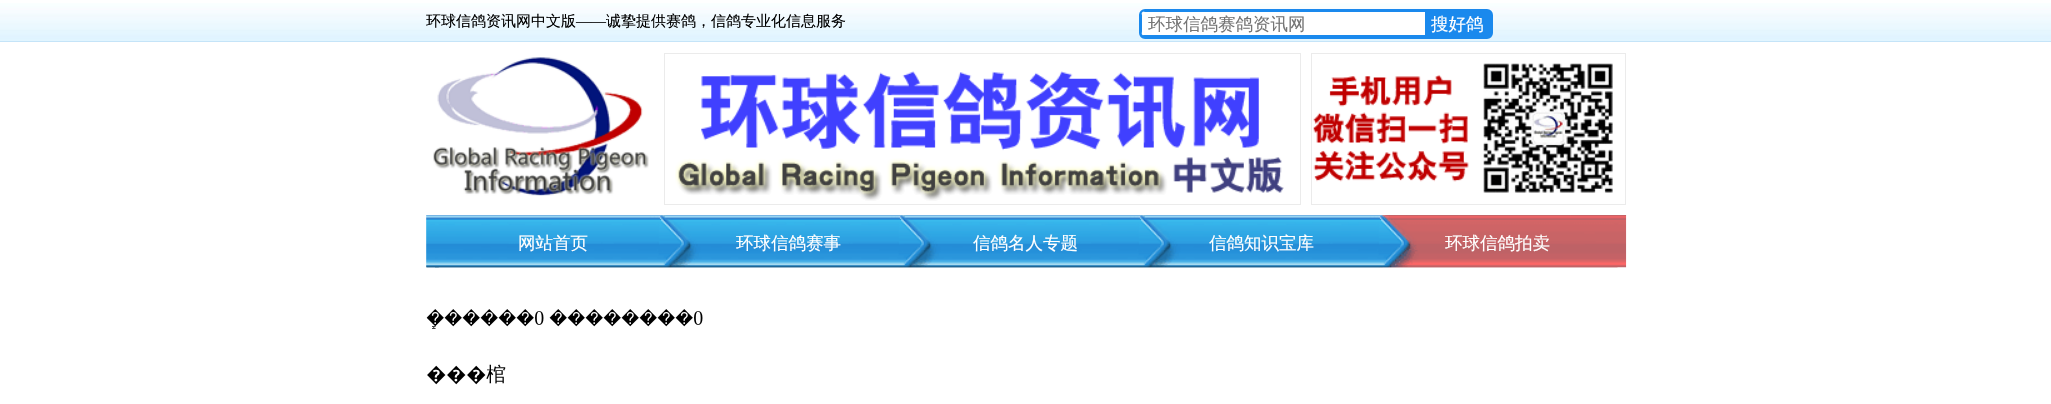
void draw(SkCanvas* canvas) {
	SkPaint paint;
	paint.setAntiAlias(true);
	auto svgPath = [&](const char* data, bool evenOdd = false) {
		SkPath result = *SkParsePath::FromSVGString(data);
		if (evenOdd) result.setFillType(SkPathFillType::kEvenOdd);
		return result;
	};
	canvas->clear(0xffffffff);
	canvas->drawImageRect(SkImages::DeferredFromEncodedData(SkData::MakeFromFileName("img1.png")), SkRect::MakeXYWH(0, 3, 2051, 38), SkSamplingOptions());
	paint.setColor(0xffc5e4f8);
	canvas->drawRect(SkRect::MakeXYWH(0, 41, 2051, 1), paint);
	SkFont f1(fontMgr->matchFamilyStyle("WenQuanYi Zen Hei", SkFontStyle(500, SkFontStyle::kNormal_Width, SkFontStyle::kUpright_Slant)), 15);
	f1.setSubpixel(true);
	paint.setColor(0xff000000);
	canvas->drawString("环球信鸽资讯网中文版", 426, 26, f1, paint);
	SkFont f2(fontMgr->matchFamilyStyle("Liberation Serif", SkFontStyle::Normal()), 15);
	f2.setSubpixel(true);
	canvas->drawString("——", 576, 26, f2, paint);
	canvas->drawString("诚挚提供赛鸽，信鸽专业化信息服务", 606, 26, f1, paint);
	paint.setColor(0xff1a89ed);
	canvas->drawRoundRect(SkRect::MakeXYWH(1140.5, 10.5, 351, 27), 4.5, 4.5, paint);
	paint.setStroke(true);
	paint.setStrokeWidth(3);
	canvas->drawRoundRect(SkRect::MakeXYWH(1140.5, 10.5, 351, 27), 4.5, 4.5, paint);
	paint.setStroke(false);
	paint.setColor(0xffffffff);
	canvas->drawPath(svgPath("M1145 11H1425C1425.5 11 1426 11.5 1426 12V35C1426 35.5 1425.5 36 1425 36H1145C1143 36 1141 34 1141 32V15C1141 13 1143 11 1145 11Z"), paint);
	canvas->save();
	canvas->clipRect(SkRect::MakeXYWH(1141, 11, 349, 25));
	paint.setColor(0xff1a89ed);
	canvas->drawPath(svgPath("M1141 15C1141 19 1140 32 1142 35V12ZM1145 11L1142 12H1425V35H1142C1143 36 1144 36 1145 36H1425C1426 36 1426 36 1426 35V12C1426 11 1426 11 1425 11Z", true), paint);
	canvas->restore();
	SkFont f3(fontMgr->matchFamilyStyle("WenQuanYi Zen Hei", SkFontStyle(500, SkFontStyle::kNormal_Width, SkFontStyle::kUpright_Slant)), 17.5);
	f3.setSubpixel(true);
	paint.setColor(0xff757575);
	canvas->drawString("环球信鸽赛鸽资讯网", 1148, 30, f3, paint);
	paint.setColor(0xff1a89ed);
	canvas->drawPath(svgPath("M1425 11H1486C1488 11 1490 13 1490 15V32C1490 34 1488 36 1486 36H1425Z"), paint);
	paint.setColor(0xffffffff);
	canvas->drawString("搜好鸽", 1431, 30, f3, paint);
	canvas->drawImageRect(SkImages::DeferredFromEncodedData(SkData::MakeFromFileName("img2.png")), SkRect::MakeXYWH(433, 57, 216, 139), SkSamplingOptions());
	paint.setStroke(true);
	paint.setStrokeWidth(1);
	paint.setColor(0xffebebeb);
	canvas->drawRect(SkRect::MakeXYWH(664.5, 53.5, 636, 151), paint);
	canvas->drawImageRect(SkImages::DeferredFromEncodedData(SkData::MakeFromFileName("img3.png")), SkRect::MakeXYWH(675, 71, 609, 130), SkSamplingOptions());
	canvas->drawRect(SkRect::MakeXYWH(1311.5, 53.5, 314, 151), paint);
	canvas->drawImageRect(SkImages::DeferredFromEncodedData(SkData::MakeFromFileName("img4.png")), SkRect::MakeXYWH(1313, 63, 300, 130), SkSamplingOptions());
	canvas->drawImageRect(SkImages::DeferredFromEncodedData(SkData::MakeFromFileName("img5.png")), SkRect::MakeXYWH(426, 215, 1201, 53), SkSamplingOptions());
	canvas->drawImageRect(SkImages::DeferredFromEncodedData(SkData::MakeFromFileName("img6.png")), SkRect::MakeXYWH(426, 215, 13, 53), SkSamplingOptions());
	canvas->drawImageRect(SkImages::DeferredFromEncodedData(SkData::MakeFromFileName("img7.png")), SkRect::MakeXYWH(435, 215, 1183, 53), SkSamplingOptions());
	paint.setStroke(false);
	paint.setColor(0xffffffff);
	canvas->drawString("网站首页", 518, 249, f3, paint);
	canvas->drawString("环球信鸽赛事", 736, 249, f3, paint);
	canvas->drawString("信鸽名人专题", 973, 249, f3, paint);
	canvas->drawString("信鸽知识宝库", 1209, 249, f3, paint);
	canvas->drawString("环球信鸽拍卖", 1445, 249, f3, paint);
	canvas->drawImageRect(SkImages::DeferredFromEncodedData(SkData::MakeFromFileName("img8.png")), SkRect::MakeXYWH(426, 309, 277, 20), SkSamplingOptions());
	canvas->drawImageRect(SkImages::DeferredFromEncodedData(SkData::MakeFromFileName("img9.png")), SkRect::MakeXYWH(427, 364, 79, 21), SkSamplingOptions());
}
